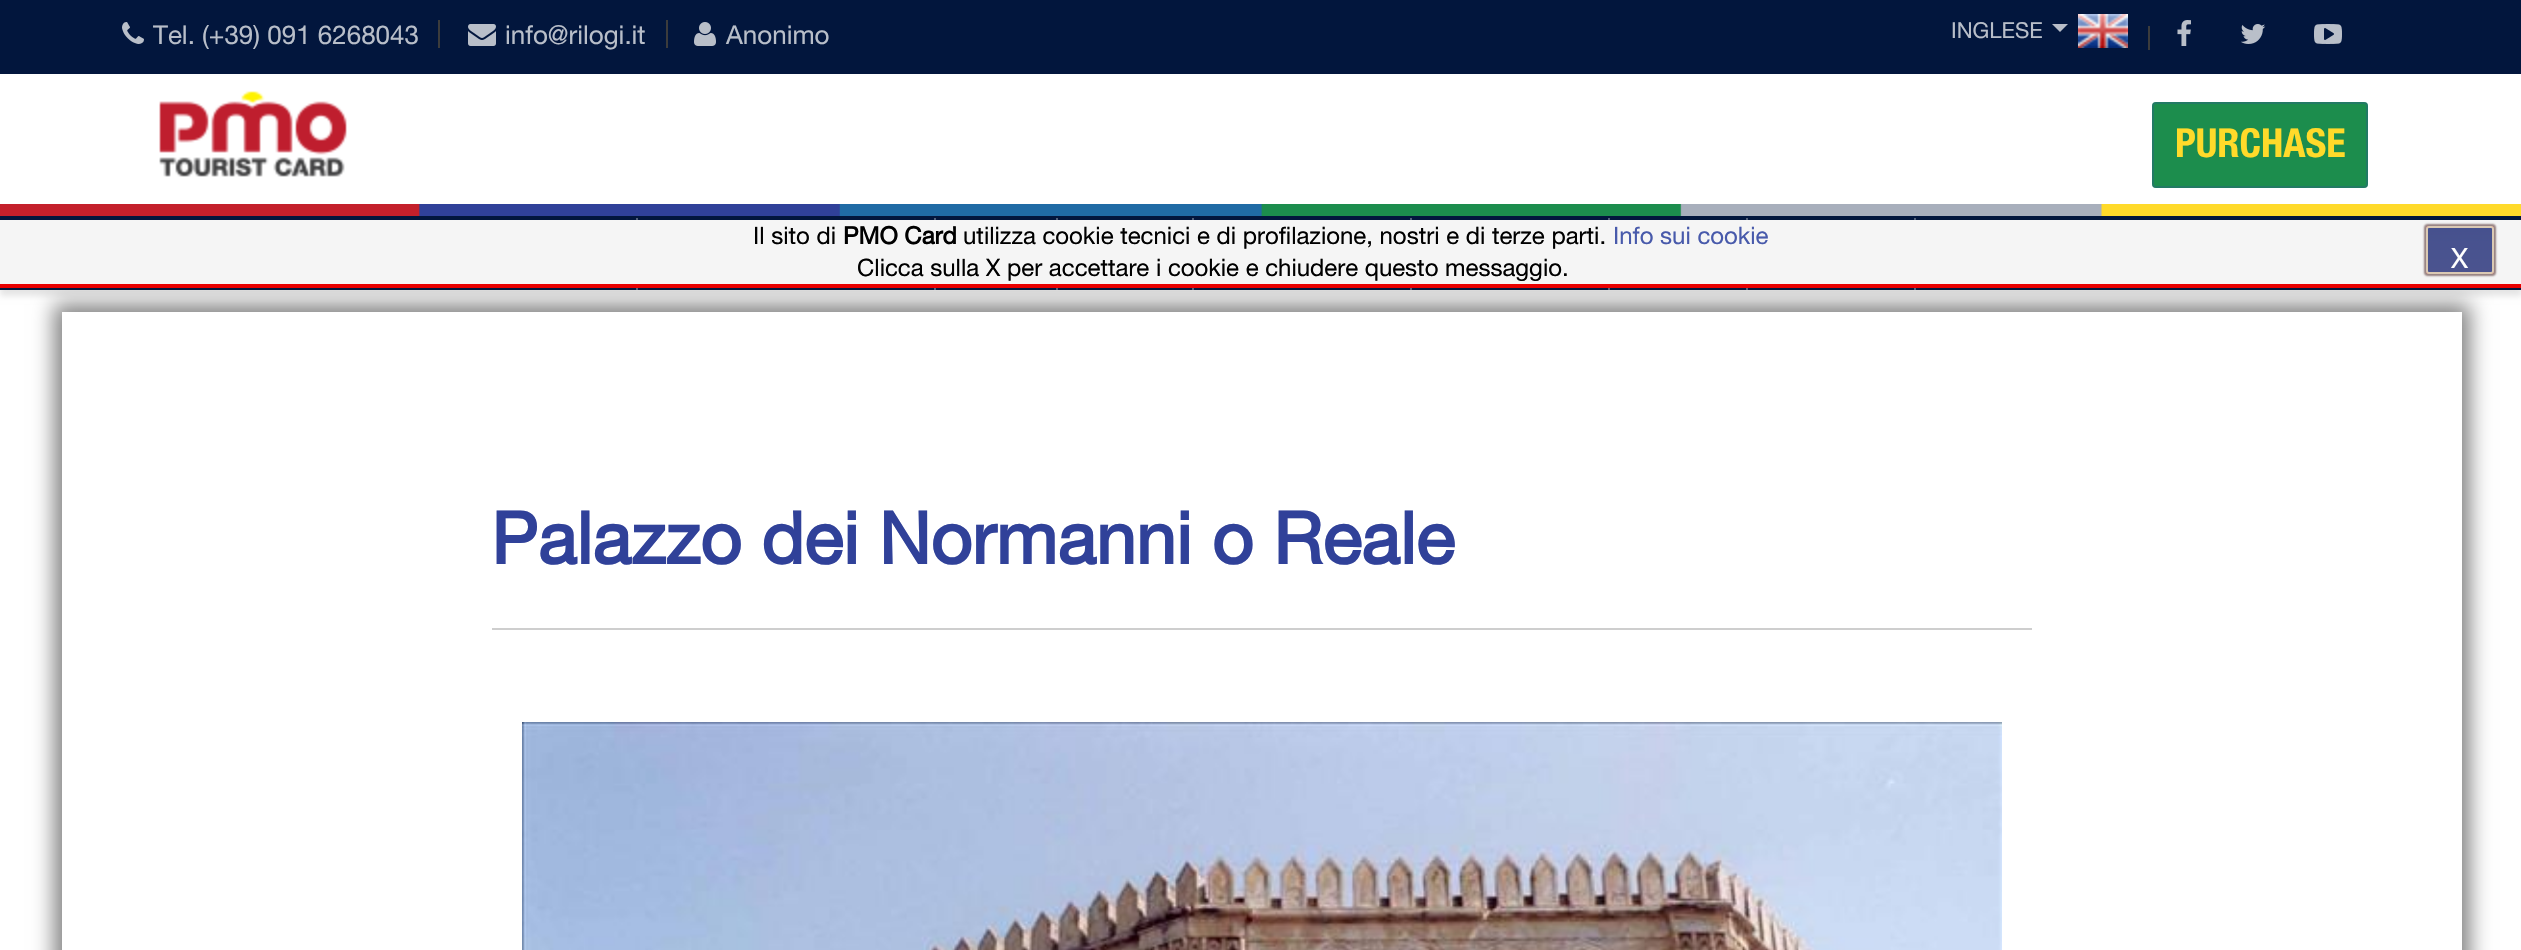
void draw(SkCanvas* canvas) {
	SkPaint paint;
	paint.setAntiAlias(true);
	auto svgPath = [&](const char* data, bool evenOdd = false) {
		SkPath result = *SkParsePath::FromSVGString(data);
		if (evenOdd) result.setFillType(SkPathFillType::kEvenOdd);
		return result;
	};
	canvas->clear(0xffffffff);
	paint.setColor(0xff02163d);
	canvas->drawRect(SkRect::MakeXYWH(0, 0, 2521, 74), paint);
	paint.setColor(0xff3c3c3c);
	canvas->drawRect(SkRect::MakeXYWH(438, 20, 2, 28), paint);
	canvas->drawImageRect(SkImages::DeferredFromEncodedData(SkData::MakeFromFileName("img1.png")), SkRect::MakeXYWH(122, 22, 22, 22), SkSamplingOptions());
	SkFont f1(fontMgr->matchFamilyStyle("Helvetica Neue", SkFontStyle::Normal()), 26);
	f1.setSubpixel(true);
	paint.setColor(0xffb8bec9);
	canvas->drawString("Tel. (+39) 091 6268043", 153, 44, f1, paint);
	paint.setColor(0xff3c3c3c);
	canvas->drawRect(SkRect::MakeXYWH(666, 20, 2, 28), paint);
	canvas->drawImageRect(SkImages::DeferredFromEncodedData(SkData::MakeFromFileName("img2.png")), SkRect::MakeXYWH(468, 24, 28, 22), SkSamplingOptions());
	paint.setColor(0xffb8bec9);
	canvas->drawString("info@rilogi.it", 505, 44, f1, paint);
	canvas->drawImageRect(SkImages::DeferredFromEncodedData(SkData::MakeFromFileName("img3.png")), SkRect::MakeXYWH(694, 22, 22, 24), SkSamplingOptions());
	canvas->drawString("Anonimo", 726, 44, f1, paint);
	paint.setColor(0xff3c3c3c);
	canvas->drawRect(SkRect::MakeXYWH(2148, 26, 2, 24), paint);
	SkFont f2(fontMgr->matchFamilyStyle("Helvetica Neue", SkFontStyle::Normal()), 22);
	f2.setSubpixel(true);
	paint.setColor(0xffb8bec9);
	canvas->drawString("INGLESE", 1951, 38, f2, paint);
	canvas->drawPath(svgPath("M2052 24H2068L2060 32Z"), paint);
	canvas->drawImageRect(SkImages::DeferredFromEncodedData(SkData::MakeFromFileName("img4.png")), SkRect::MakeXYWH(2078, 14, 50, 34), SkSamplingOptions());
	canvas->drawImageRect(SkImages::DeferredFromEncodedData(SkData::MakeFromFileName("img5.png")), SkRect::MakeXYWH(2177, 20, 14, 26), SkSamplingOptions());
	canvas->drawImageRect(SkImages::DeferredFromEncodedData(SkData::MakeFromFileName("img6.png")), SkRect::MakeXYWH(2241, 24, 25, 20), SkSamplingOptions());
	canvas->drawImageRect(SkImages::DeferredFromEncodedData(SkData::MakeFromFileName("img7.png")), SkRect::MakeXYWH(2314, 24, 28, 20), SkSamplingOptions());
	paint.setColor(0x1a000000);
	paint.setMaskFilter(SkMaskFilter::MakeBlur(kNormal_SkBlurStyle, 3));
	canvas->drawRect(SkRect::MakeXYWH(0, 80, 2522, 216), paint);
	paint.setMaskFilter(nullptr);
	paint.setColor(0xffffffff);
	canvas->drawRect(SkRect::MakeXYWH(0, 76, 2521, 128), paint);
	canvas->drawImageRect(SkImages::DeferredFromEncodedData(SkData::MakeFromFileName("img8.png")), SkRect::MakeXYWH(159, 91, 188, 86), SkSamplingOptions());
	paint.setColor(0xff1c8d4d);
	canvas->drawRoundRect(SkRect::MakeXYWH(2152, 102, 216, 86), 4, 4, paint);
	paint.setStroke(true);
	paint.setStrokeWidth(2);
	paint.setColor(0x4f2c5198);
	canvas->drawRoundRect(SkRect::MakeXYWH(2153, 103, 214, 84), 3, 3, paint);
	SkFont f3(fontMgr->matchFamilyStyle("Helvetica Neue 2", SkFontStyle::Bold()), 40);
	f3.setSubpixel(true);
	paint.setStroke(false);
	paint.setColor(0xffffda2a);
	canvas->drawString("PURCHASE", 2175, 157, f3, paint);
	canvas->save();
	canvas->clipPath(svgPath("M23 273H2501V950H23ZM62 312H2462V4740H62Z", true), true);
	paint.setColor(0x7d000000);
	paint.setMaskFilter(SkMaskFilter::MakeBlur(kNormal_SkBlurStyle, 10));
	canvas->drawRect(SkRect::MakeXYWH(54, 304, 2416, 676), paint);
	paint.setMaskFilter(nullptr);
	canvas->restore();
	paint.setColor(0xff02163d);
	canvas->drawRect(SkRect::MakeXYWH(0, 216, 2521, 74), paint);
	canvas->drawImageRect(SkImages::DeferredFromEncodedData(SkData::MakeFromFileName("img9.png")), SkRect::MakeXYWH(0, 204, 2521, 12), SkSamplingOptions());
	paint.setColor(0xff53617b);
	canvas->drawRect(SkRect::MakeXYWH(636, 218, 2, 72), paint);
	canvas->drawRect(SkRect::MakeXYWH(934, 218, 2, 72), paint);
	canvas->drawRect(SkRect::MakeXYWH(1056, 218, 2, 72), paint);
	canvas->drawRect(SkRect::MakeXYWH(1192, 218, 2, 72), paint);
	canvas->drawRect(SkRect::MakeXYWH(1410, 218, 2, 72), paint);
	canvas->drawRect(SkRect::MakeXYWH(1608, 218, 2, 72), paint);
	canvas->drawRect(SkRect::MakeXYWH(1746, 218, 2, 72), paint);
	canvas->drawRect(SkRect::MakeXYWH(1914, 218, 2, 72), paint);
	paint.setColor(0xfff5f5f5);
	canvas->drawRect(SkRect::MakeXYWH(0, 220, 2521, 64), paint);
	paint.setColor(0xffe90000);
	canvas->drawRect(SkRect::MakeXYWH(0, 284, 2521, 4), paint);
	SkFont f4(fontMgr->matchFamilyStyle("Helvetica Neue", SkFontStyle::Normal()), 24);
	f4.setSubpixel(true);
	paint.setColor(0xff000000);
	canvas->drawString("Il sito di", 753, 244, f4, paint);
	SkFont f5(fontMgr->matchFamilyStyle("Helvetica Neue", SkFontStyle::Bold()), 24);
	f5.setSubpixel(true);
	canvas->drawString("PMO Card", 843, 244, f5, paint);
	canvas->drawString("utilizza cookie tecnici e di profilazione, nostri e di terze parti.", 963, 244, f4, paint);
	paint.setColor(0xff485aab);
	canvas->drawString("Info sui cookie", 1613, 244, f4, paint);
	paint.setColor(0xff000000);
	canvas->drawString("Clicca sulla X per accettare i cookie e chiudere questo messaggio.", 857, 276, f4, paint);
	paint.setColor(0x80310808);
	paint.setMaskFilter(SkMaskFilter::MakeBlur(kNormal_SkBlurStyle, 1));
	canvas->drawRoundRect(SkRect::MakeXYWH(2424, 224, 72, 52), 4, 4, paint);
	paint.setMaskFilter(nullptr);
	paint.setColor(0xffde5e60);
	canvas->drawRoundRect(SkRect::MakeXYWH(2426, 226, 68, 48), 3, 3, paint);
	canvas->save();
	canvas->clipPath(svgPath("M2429 226H2491C2492.5 226 2494 227.5 2494 229V271C2494 272.5 2492.5 274 2491 274H2429C2427.5 274 2426 272.5 2426 271V229C2426 227.5 2427.5 226 2429 226Z"), true);
	{
		const SkColor colors[] = {0xd4274e96, 0xd42c5198};
		const float stops[] = {0, 1};
		const SkPoint ends[] = {{2460, 228}, {2460, 272}};
		paint.setShader(SkGradientShader::MakeLinear(ends, colors, stops, 2, SkTileMode::kClamp));
		paint.setAlpha(255);
	}
	canvas->drawRect(SkRect::MakeXYWH(2426, 228, 68, 44), paint);
	canvas->restore();
	paint.setStroke(true);
	paint.setShader(nullptr);
	paint.setColor(0xffdac9b3);
	canvas->drawRoundRect(SkRect::MakeXYWH(2427, 227, 66, 46), 2, 2, paint);
	SkFont f6(fontMgr->matchFamilyStyle("Helvetica Neue", SkFontStyle::Normal()), 28);
	f6.setSubpixel(true);
	paint.setStroke(false);
	paint.setColor(0xffffffff);
	canvas->drawString("X", 2451, 268, f6, paint);
	SkFont f7(fontMgr->matchFamilyStyle("Helvetica Neue", SkFontStyle::Bold()), 72);
	f7.setSubpixel(true);
	paint.setColor(0xff304199);
	canvas->drawString("Palazzo dei Normanni o Reale", 491, 564, f7, paint);
	paint.setColor(0xffcecece);
	canvas->drawRect(SkRect::MakeXYWH(492, 628, 1540, 2), paint);
	canvas->drawImageRect(SkImages::DeferredFromEncodedData(SkData::MakeFromFileName("img10.png")), SkRect::MakeXYWH(522, 722, 1480, 228), SkSamplingOptions());
}
